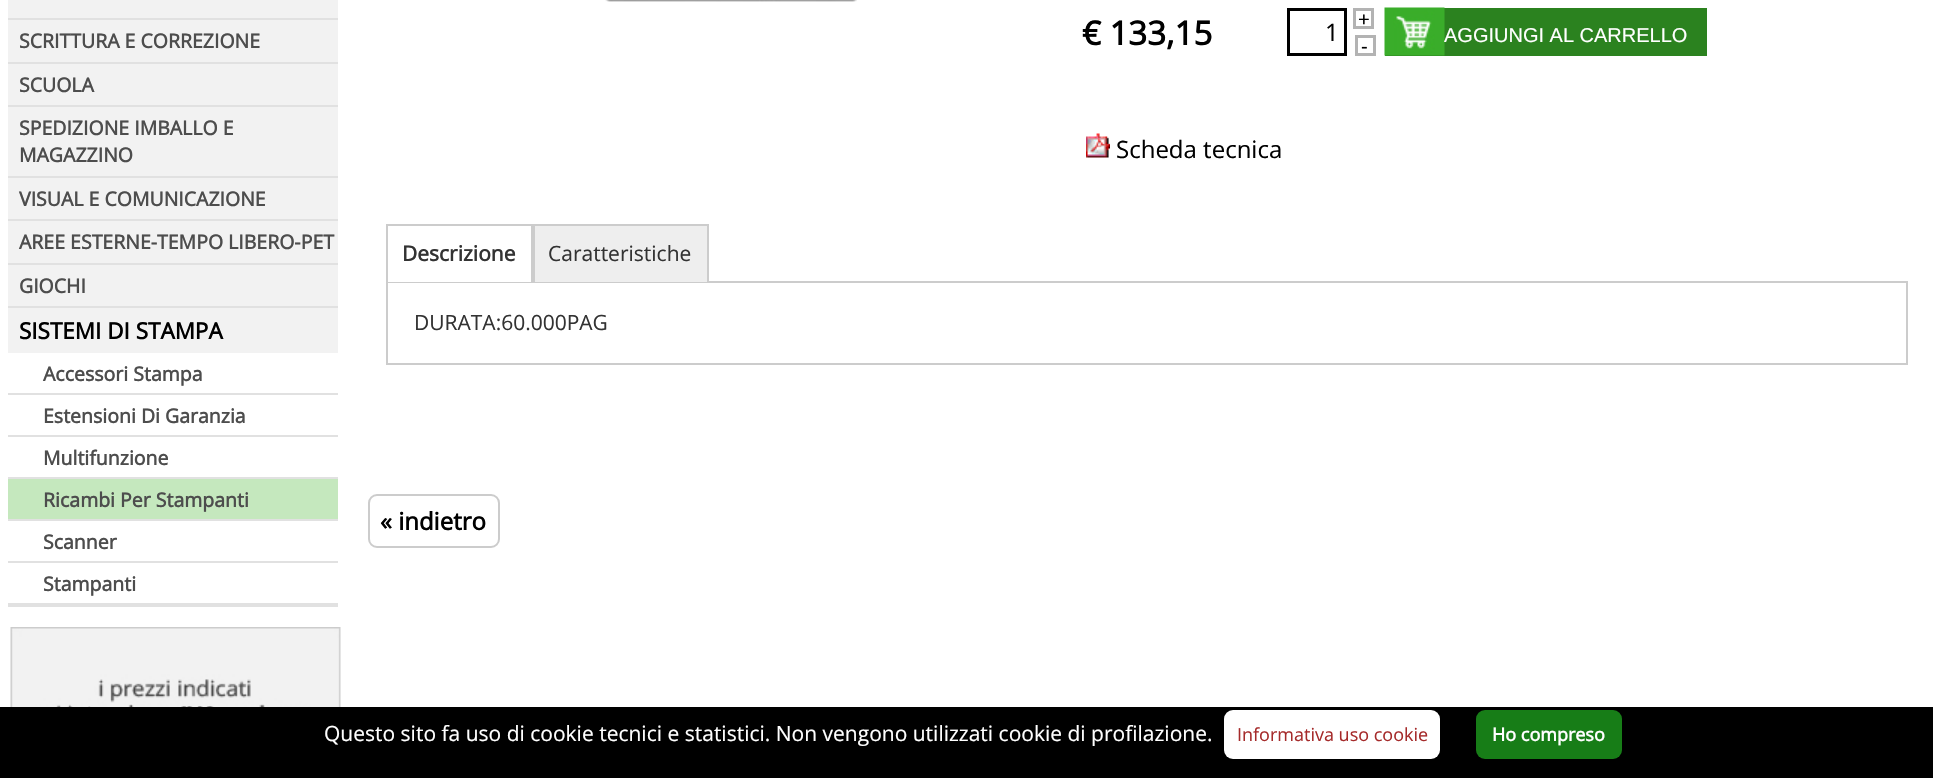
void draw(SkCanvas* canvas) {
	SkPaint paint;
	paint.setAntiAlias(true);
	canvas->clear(0xffffffff);
	paint.setColor(0xfff2f2f2);
	canvas->drawRect(SkRect::MakeXYWH(8, 0, 330, 353), paint);
	paint.setColor(0xffe1e1e1);
	canvas->drawRect(SkRect::MakeXYWH(8, 18, 330, 2), paint);
	canvas->drawRect(SkRect::MakeXYWH(8, 62, 330, 2), paint);
	SkFont f1(fontMgr->matchFamilyStyle("Open Sans", SkFontStyle::Bold()), 19.5);
	f1.setSubpixel(true);
	paint.setColor(0xff4d4d4d);
	canvas->drawString("SCRITTURA E CORREZIONE", 19, 48, f1, paint);
	paint.setColor(0xffe1e1e1);
	canvas->drawRect(SkRect::MakeXYWH(8, 105, 330, 2), paint);
	paint.setColor(0xff4d4d4d);
	canvas->drawString("SCUOLA", 19, 92, f1, paint);
	paint.setColor(0xffe1e1e1);
	canvas->drawRect(SkRect::MakeXYWH(8, 176, 330, 2), paint);
	paint.setColor(0xff4d4d4d);
	canvas->drawString("SPEDIZIONE IMBALLO E", 19, 135, f1, paint);
	canvas->drawString("MAGAZZINO", 19, 162, f1, paint);
	paint.setColor(0xffe1e1e1);
	canvas->drawRect(SkRect::MakeXYWH(8, 219, 330, 2), paint);
	paint.setColor(0xff4d4d4d);
	canvas->drawString("VISUAL E COMUNICAZIONE", 19, 206, f1, paint);
	paint.setColor(0xffe1e1e1);
	canvas->drawRect(SkRect::MakeXYWH(8, 263, 330, 2), paint);
	paint.setColor(0xff4d4d4d);
	canvas->drawString("AREE ESTERNE-TEMPO LIBERO-PET", 19, 249, f1, paint);
	paint.setColor(0xffe1e1e1);
	canvas->drawRect(SkRect::MakeXYWH(8, 306, 330, 2), paint);
	paint.setColor(0xff4d4d4d);
	canvas->drawString("GIOCHI", 19, 293, f1, paint);
	paint.setColor(0xffe1e1e1);
	canvas->drawRect(SkRect::MakeXYWH(8, 603, 330, 4), paint);
	SkFont f2(fontMgr->matchFamilyStyle("Open Sans", SkFontStyle::Bold()), 22.5);
	f2.setSubpixel(true);
	paint.setColor(0xff000000);
	canvas->drawString("SISTEMI DI STAMPA", 19, 339, f2, paint);
	paint.setColor(0xffe1e1e1);
	canvas->drawRect(SkRect::MakeXYWH(8, 393, 330, 2), paint);
	paint.setColor(0xff4d4d4d);
	canvas->drawString("Accessori Stampa", 43, 381, f1, paint);
	paint.setColor(0xffe1e1e1);
	canvas->drawRect(SkRect::MakeXYWH(8, 435, 330, 2), paint);
	paint.setColor(0xff4d4d4d);
	canvas->drawString("Estensioni Di Garanzia", 43, 423, f1, paint);
	paint.setColor(0xffe1e1e1);
	canvas->drawRect(SkRect::MakeXYWH(8, 477, 330, 2), paint);
	paint.setColor(0xff4d4d4d);
	canvas->drawString("Multifunzione", 43, 465, f1, paint);
	paint.setColor(0xffc5e8be);
	canvas->drawRect(SkRect::MakeXYWH(8, 479, 330, 40), paint);
	paint.setColor(0xffe1e1e1);
	canvas->drawRect(SkRect::MakeXYWH(8, 519, 330, 2), paint);
	paint.setColor(0xff4d4d4d);
	canvas->drawString("Ricambi Per Stampanti", 43, 507, f1, paint);
	paint.setColor(0xffe1e1e1);
	canvas->drawRect(SkRect::MakeXYWH(8, 561, 330, 2), paint);
	paint.setColor(0xff4d4d4d);
	canvas->drawString("Scanner", 43, 549, f1, paint);
	canvas->drawString("Stampanti", 43, 591, f1, paint);
	canvas->drawImageRect(SkImages::DeferredFromEncodedData(SkData::MakeFromFileName("img1.png")), SkRect::MakeXYWH(10, 627, 331, 80), SkSamplingOptions());
	canvas->drawImageRect(SkImages::DeferredFromEncodedData(SkData::MakeFromFileName("img2.png")), SkRect::MakeXYWH(605, 0, 252, 2), SkSamplingOptions());
	SkFont f3(fontMgr->matchFamilyStyle("Open Sans", SkFontStyle::Bold()), 33);
	f3.setSubpixel(true);
	paint.setColor(0xff000000);
	canvas->drawString("€ 133,15", 1082, 45, f3, paint);
	paint.setStroke(true);
	paint.setStrokeWidth(3);
	paint.setColor(0xffb3b3b3);
	canvas->drawRect(SkRect::MakeXYWH(1354.5, 9.5, 18, 18), paint);
	SkFont f4(fontMgr->matchFamilyStyle("Liberation Sans", SkFontStyle::Normal()), 20);
	f4.setSubpixel(true);
	paint.setStroke(false);
	paint.setColor(0xff000000);
	canvas->drawString("+", 1358, 26, f4, paint);
	paint.setStroke(true);
	canvas->drawRect(SkRect::MakeXYWH(1288.5, 9.5, 57, 45), paint);
	SkFont f5(fontMgr->matchFamilyStyle("Open Sans", SkFontStyle::Normal()), 24);
	f5.setSubpixel(true);
	paint.setStroke(false);
	canvas->drawString("1", 1325, 41, f5, paint);
	paint.setStroke(true);
	paint.setColor(0xffb3b3b3);
	canvas->drawRect(SkRect::MakeXYWH(1356.5, 36.5, 18, 18), paint);
	paint.setStroke(false);
	paint.setColor(0xff000000);
	canvas->drawString("-", 1361, 53, f4, paint);
	paint.setColor(0xff2b821f);
	canvas->drawRect(SkRect::MakeXYWH(1385, 8, 322, 48), paint);
	canvas->drawImageRect(SkImages::DeferredFromEncodedData(SkData::MakeFromFileName("img3.png")), SkRect::MakeXYWH(1384, 7, 61, 49), SkSamplingOptions());
	paint.setColor(0xffffffff);
	canvas->drawString("AGGIUNGI AL CARRELLO", 1444, 42, f4, paint);
	canvas->drawImageRect(SkImages::DeferredFromEncodedData(SkData::MakeFromFileName("img4.png")), SkRect::MakeXYWH(1086, 133, 24, 25), SkSamplingOptions());
	paint.setColor(0xff000000);
	canvas->drawString("Scheda tecnica", 1116, 158, f5, paint);
	paint.setStroke(true);
	paint.setStrokeWidth(2);
	paint.setColor(0xffcccccc);
	canvas->drawRect(SkRect::MakeXYWH(387, 282, 1520, 82), paint);
	paint.setStroke(false);
	paint.setColor(0xffffffff);
	canvas->drawRect(SkRect::MakeXYWH(388, 281, 143, 1), paint);
	paint.setColor(0xffcccccc);
	canvas->drawRect(SkRect::MakeXYWH(386, 224, 322, 2), paint);
	canvas->drawRect(SkRect::MakeXYWH(531, 224, 4, 58), paint);
	canvas->drawRect(SkRect::MakeXYWH(386, 224, 2, 58), paint);
	SkFont f6(fontMgr->matchFamilyStyle("Open Sans", SkFontStyle::Bold()), 21);
	f6.setSubpixel(true);
	paint.setColor(0xff333333);
	canvas->drawString("Descrizione", 402, 261, f6, paint);
	paint.setColor(0xffeeeeee);
	canvas->drawRect(SkRect::MakeXYWH(535, 226, 172, 56), paint);
	paint.setColor(0xffcccccc);
	canvas->drawRect(SkRect::MakeXYWH(707, 224, 2, 58), paint);
	SkFont f7(fontMgr->matchFamilyStyle("Open Sans", SkFontStyle::Normal()), 21);
	f7.setSubpixel(true);
	paint.setColor(0xff333333);
	canvas->drawString("Caratteristiche", 548, 261, f7, paint);
	canvas->drawString("DURATA:60.000PAG", 414, 330, f7, paint);
	paint.setStroke(true);
	paint.setColor(0xffcccccc);
	canvas->drawRoundRect(SkRect::MakeXYWH(369, 495, 130, 52), 8, 8, paint);
	SkFont f8(fontMgr->matchFamilyStyle("Open Sans", SkFontStyle::Bold()), 24);
	f8.setSubpixel(true);
	paint.setStroke(false);
	paint.setColor(0xff000000);
	canvas->drawString("« indietro", 380, 530, f8, paint);
	canvas->drawRect(SkRect::MakeXYWH(0, 707, 1933, 71), paint);
	paint.setColor(0xffffffff);
	canvas->drawString("Questo sito fa uso di cookie tecnici e statistici. Non vengono utilizzati cookie di profilazione.", 324, 741, f7, paint);
	canvas->drawRoundRect(SkRect::MakeXYWH(1224, 710, 216, 49), 9, 9, paint);
	SkFont f9(fontMgr->matchFamilyStyle("Open Sans", SkFontStyle::Normal()), 18);
	f9.setSubpixel(true);
	paint.setColor(0xffa52a2a);
	canvas->drawString("Informativa uso cookie", 1237, 741, f9, paint);
	paint.setColor(0xff177d17);
	canvas->drawRoundRect(SkRect::MakeXYWH(1476, 710, 146, 49), 9, 9, paint);
	SkFont f10(fontMgr->matchFamilyStyle("Open Sans", SkFontStyle::Bold()), 18);
	f10.setSubpixel(true);
	paint.setColor(0xffffffff);
	canvas->drawString("Ho compreso", 1492, 741, f10, paint);
}
